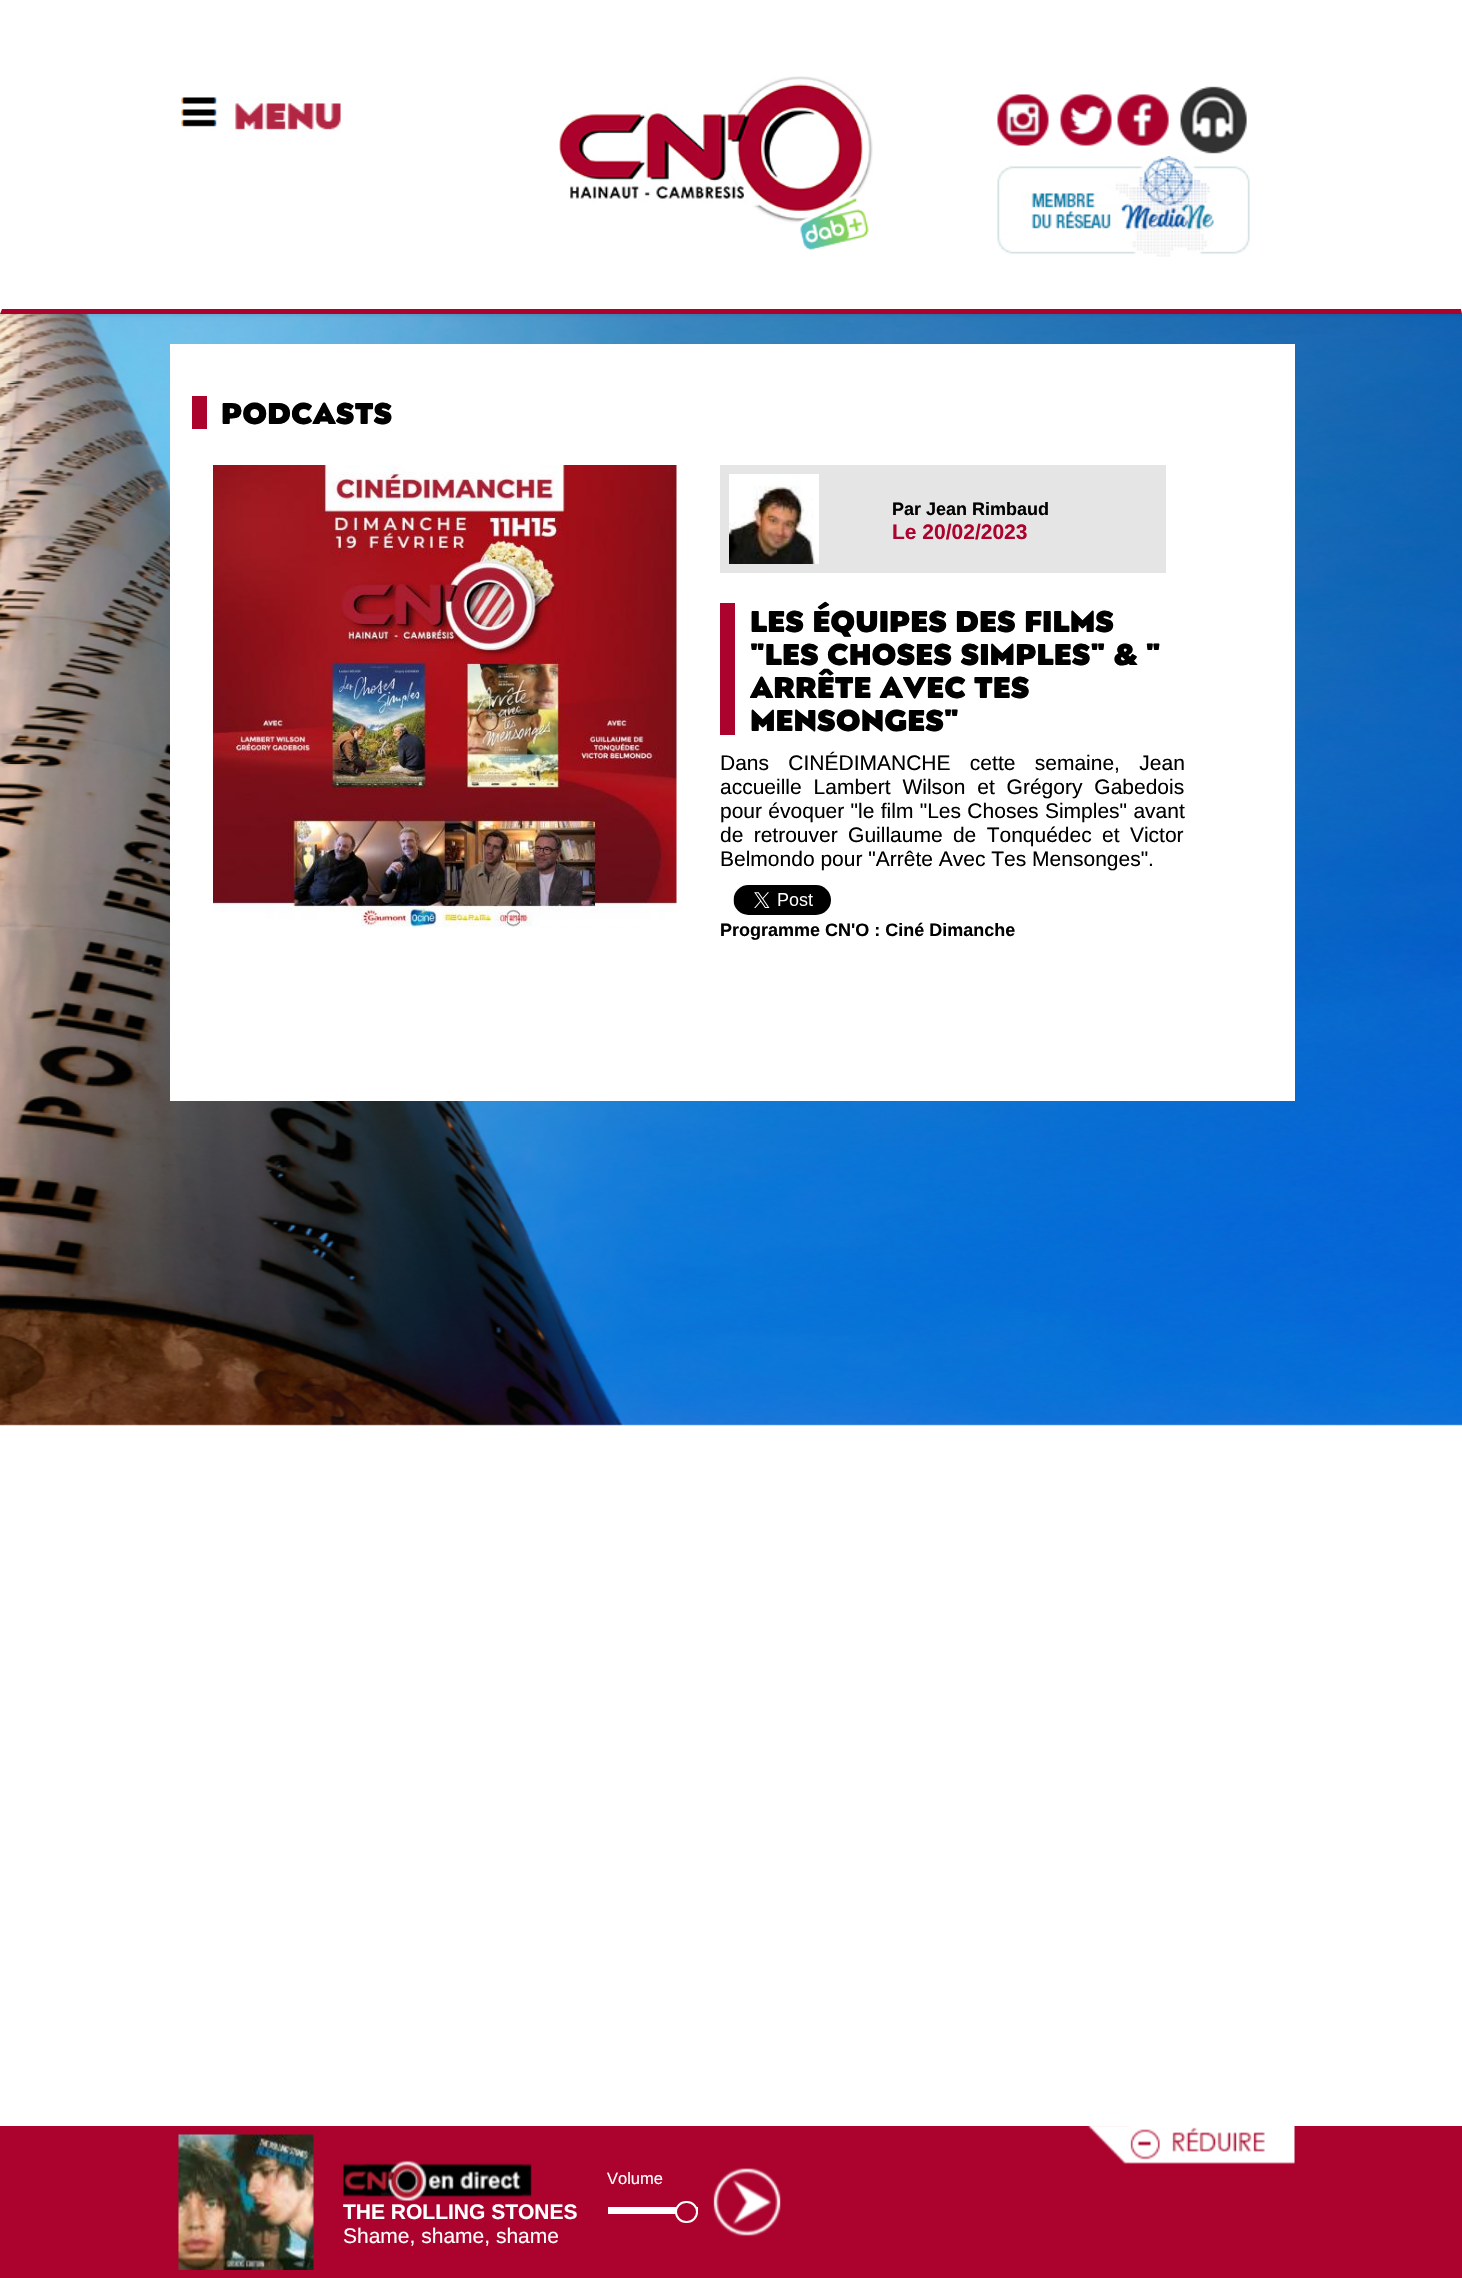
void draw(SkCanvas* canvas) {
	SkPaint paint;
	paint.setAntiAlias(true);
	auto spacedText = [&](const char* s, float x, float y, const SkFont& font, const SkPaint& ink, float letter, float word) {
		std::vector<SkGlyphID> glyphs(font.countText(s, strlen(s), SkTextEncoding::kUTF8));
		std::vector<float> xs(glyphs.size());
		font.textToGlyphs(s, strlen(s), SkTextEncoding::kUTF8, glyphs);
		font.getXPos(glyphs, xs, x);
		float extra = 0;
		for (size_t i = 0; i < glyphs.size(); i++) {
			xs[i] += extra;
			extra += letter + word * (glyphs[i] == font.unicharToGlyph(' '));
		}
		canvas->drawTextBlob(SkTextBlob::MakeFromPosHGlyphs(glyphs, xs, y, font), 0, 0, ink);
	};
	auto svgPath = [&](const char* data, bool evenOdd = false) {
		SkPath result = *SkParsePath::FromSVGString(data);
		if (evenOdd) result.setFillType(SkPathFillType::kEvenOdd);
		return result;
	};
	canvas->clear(0xffffffff);
	canvas->drawImageRect(SkImages::DeferredFromEncodedData(SkData::MakeFromFileName("img1.png")), SkRect::MakeXYWH(0, 314, 1462, 1112), SkSamplingOptions());
	paint.setColor(0x1a000000);
	paint.setMaskFilter(SkMaskFilter::MakeBlur(kNormal_SkBlurStyle, 2));
	canvas->drawRect(SkRect::MakeXYWH(2, 2, 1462, 313), paint);
	paint.setMaskFilter(nullptr);
	paint.setColor(0xffffffff);
	canvas->drawRect(SkRect::MakeXYWH(0, 0, 1462, 314), paint);
	paint.setColor(0xffac032e);
	canvas->drawPath(svgPath("M1462 314H0L2 309H1461Z"), paint);
	canvas->drawImageRect(SkImages::DeferredFromEncodedData(SkData::MakeFromFileName("img2.png")), SkRect::MakeXYWH(181, 97, 160, 35), SkSamplingOptions());
	canvas->drawImageRect(SkImages::DeferredFromEncodedData(SkData::MakeFromFileName("img3.png")), SkRect::MakeXYWH(559, 76, 314, 174), SkSamplingOptions());
	canvas->drawImageRect(SkImages::DeferredFromEncodedData(SkData::MakeFromFileName("img4.png")), SkRect::MakeXYWH(997, 94, 52, 52), SkSamplingOptions());
	canvas->drawImageRect(SkImages::DeferredFromEncodedData(SkData::MakeFromFileName("img5.png")), SkRect::MakeXYWH(1060, 94, 52, 52), SkSamplingOptions());
	canvas->drawImageRect(SkImages::DeferredFromEncodedData(SkData::MakeFromFileName("img6.png")), SkRect::MakeXYWH(1117, 94, 52, 52), SkSamplingOptions());
	canvas->drawImageRect(SkImages::DeferredFromEncodedData(SkData::MakeFromFileName("img7.png")), SkRect::MakeXYWH(1180, 86, 67, 68), SkSamplingOptions());
	canvas->drawImageRect(SkImages::DeferredFromEncodedData(SkData::MakeFromFileName("img8.png")), SkRect::MakeXYWH(997, 156, 253, 101), SkSamplingOptions());
	paint.setColor(0xffffffff);
	canvas->drawRect(SkRect::MakeXYWH(170, 344, 1125, 757), paint);
	paint.setColor(0xffac032e);
	canvas->drawRect(SkRect::MakeXYWH(192, 396, 15, 33), paint);
	SkFont f1(fontMgr->matchFamilyStyle("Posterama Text", SkFontStyle(800, SkFontStyle::kNormal_Width, SkFontStyle::kUpright_Slant)), 30);
	f1.setSubpixel(true);
	paint.setColor(0xff000000);
	canvas->drawString("PODCASTS", 221, 424, f1, paint);
	canvas->drawImageRect(SkImages::DeferredFromEncodedData(SkData::MakeFromFileName("img9.png")), SkRect::MakeXYWH(213, 465, 464, 463), SkSamplingOptions());
	paint.setColor(0xffe5e5e5);
	canvas->drawRect(SkRect::MakeXYWH(720, 465, 446, 108), paint);
	canvas->drawImageRect(SkImages::DeferredFromEncodedData(SkData::MakeFromFileName("img10.png")), SkRect::MakeXYWH(729, 474, 90, 90), SkSamplingOptions());
	SkFont f2(fontMgr->matchFamilyStyle("Liberation Sans", SkFontStyle::Bold()), 18);
	f2.setSubpixel(true);
	paint.setColor(0xff000000);
	canvas->drawString("Par Jean Rimbaud", 892, 515, f2, paint);
	SkFont f3(fontMgr->matchFamilyStyle("Liberation Sans", SkFontStyle::Bold()), 21);
	f3.setSubpixel(true);
	paint.setColor(0xffac032e);
	canvas->drawString("Le 20/02/2023", 892, 539, f3, paint);
	canvas->drawRect(SkRect::MakeXYWH(720, 603, 15, 132), paint);
	paint.setColor(0xff000000);
	canvas->drawString("LES ÉQUIPES DES FILMS", 750, 632, f1, paint);
	canvas->drawString("\"LES CHOSES SIMPLES\" & \"", 750, 665, f1, paint);
	canvas->drawString("ARRÊTE AVEC TES", 750, 698, f1, paint);
	canvas->drawString("MENSONGES\"", 750, 731, f1, paint);
	SkFont f4(fontMgr->matchFamilyStyle("Liberation Sans", SkFontStyle::Normal()), 21);
	f4.setSubpixel(true);
	spacedText("Dans CINÉDIMANCHE cette semaine, Jean", 720, 770, f4, paint, 0, 13.5);
	spacedText("accueille Lambert Wilson et Grégory Gabedois", 720, 794, f4, paint, 0, 6);
	spacedText("pour évoquer \"le film \"Les Choses Simples\" avant", 720, 818, f4, paint, 0, 0.5);
	spacedText("de retrouver Guillaume de Tonquédec et Victor", 720, 842, f4, paint, 0, 4.5);
	canvas->drawString("Belmondo pour \"Arrête Avec Tes Mensonges\".", 720, 866, f4, paint);
	canvas->drawImageRect(SkImages::DeferredFromEncodedData(SkData::MakeFromFileName("img11.png")), SkRect::MakeXYWH(733, 885, 98, 30), SkSamplingOptions());
	canvas->drawString("Programme CN'O : Ciné Dimanche", 720, 936, f2, paint);
	paint.setColor(0xffac032e);
	canvas->drawRect(SkRect::MakeXYWH(0, 2126, 1462, 152), paint);
	canvas->drawImageRect(SkImages::DeferredFromEncodedData(SkData::MakeFromFileName("img12.png")), SkRect::MakeXYWH(1087, 2126, 208, 38), SkSamplingOptions());
	SkFont f5(fontMgr->matchFamilyStyle("Liberation Sans", SkFontStyle::Normal()), 16.5);
	f5.setSubpixel(true);
	paint.setColor(0xffffffff);
	canvas->drawString("Volume", 607, 2184, f5, paint);
	canvas->drawRect(SkRect::MakeXYWH(608, 2207, 90, 7), paint);
	paint.setColor(0xffac032e);
	canvas->drawRoundRect(SkRect::MakeXYWH(676, 2202, 21, 20), 10, 10, paint);
	paint.setStroke(true);
	paint.setStrokeWidth(2);
	paint.setColor(0xffffffff);
	canvas->drawRoundRect(SkRect::MakeXYWH(676, 2202, 21, 20), 10, 10, paint);
	canvas->drawImageRect(SkImages::DeferredFromEncodedData(SkData::MakeFromFileName("img13.png")), SkRect::MakeXYWH(713, 2168, 68, 68), SkSamplingOptions());
	canvas->drawImageRect(SkImages::DeferredFromEncodedData(SkData::MakeFromFileName("img14.png")), SkRect::MakeXYWH(178, 2134, 136, 136), SkSamplingOptions());
	canvas->drawImageRect(SkImages::DeferredFromEncodedData(SkData::MakeFromFileName("img15.png")), SkRect::MakeXYWH(343, 2160, 189, 41), SkSamplingOptions());
	paint.setStroke(false);
	canvas->drawString("THE ROLLING STONES", 343, 2219, f3, paint);
	canvas->drawString("Shame, shame, shame", 343, 2243, f4, paint);
}
